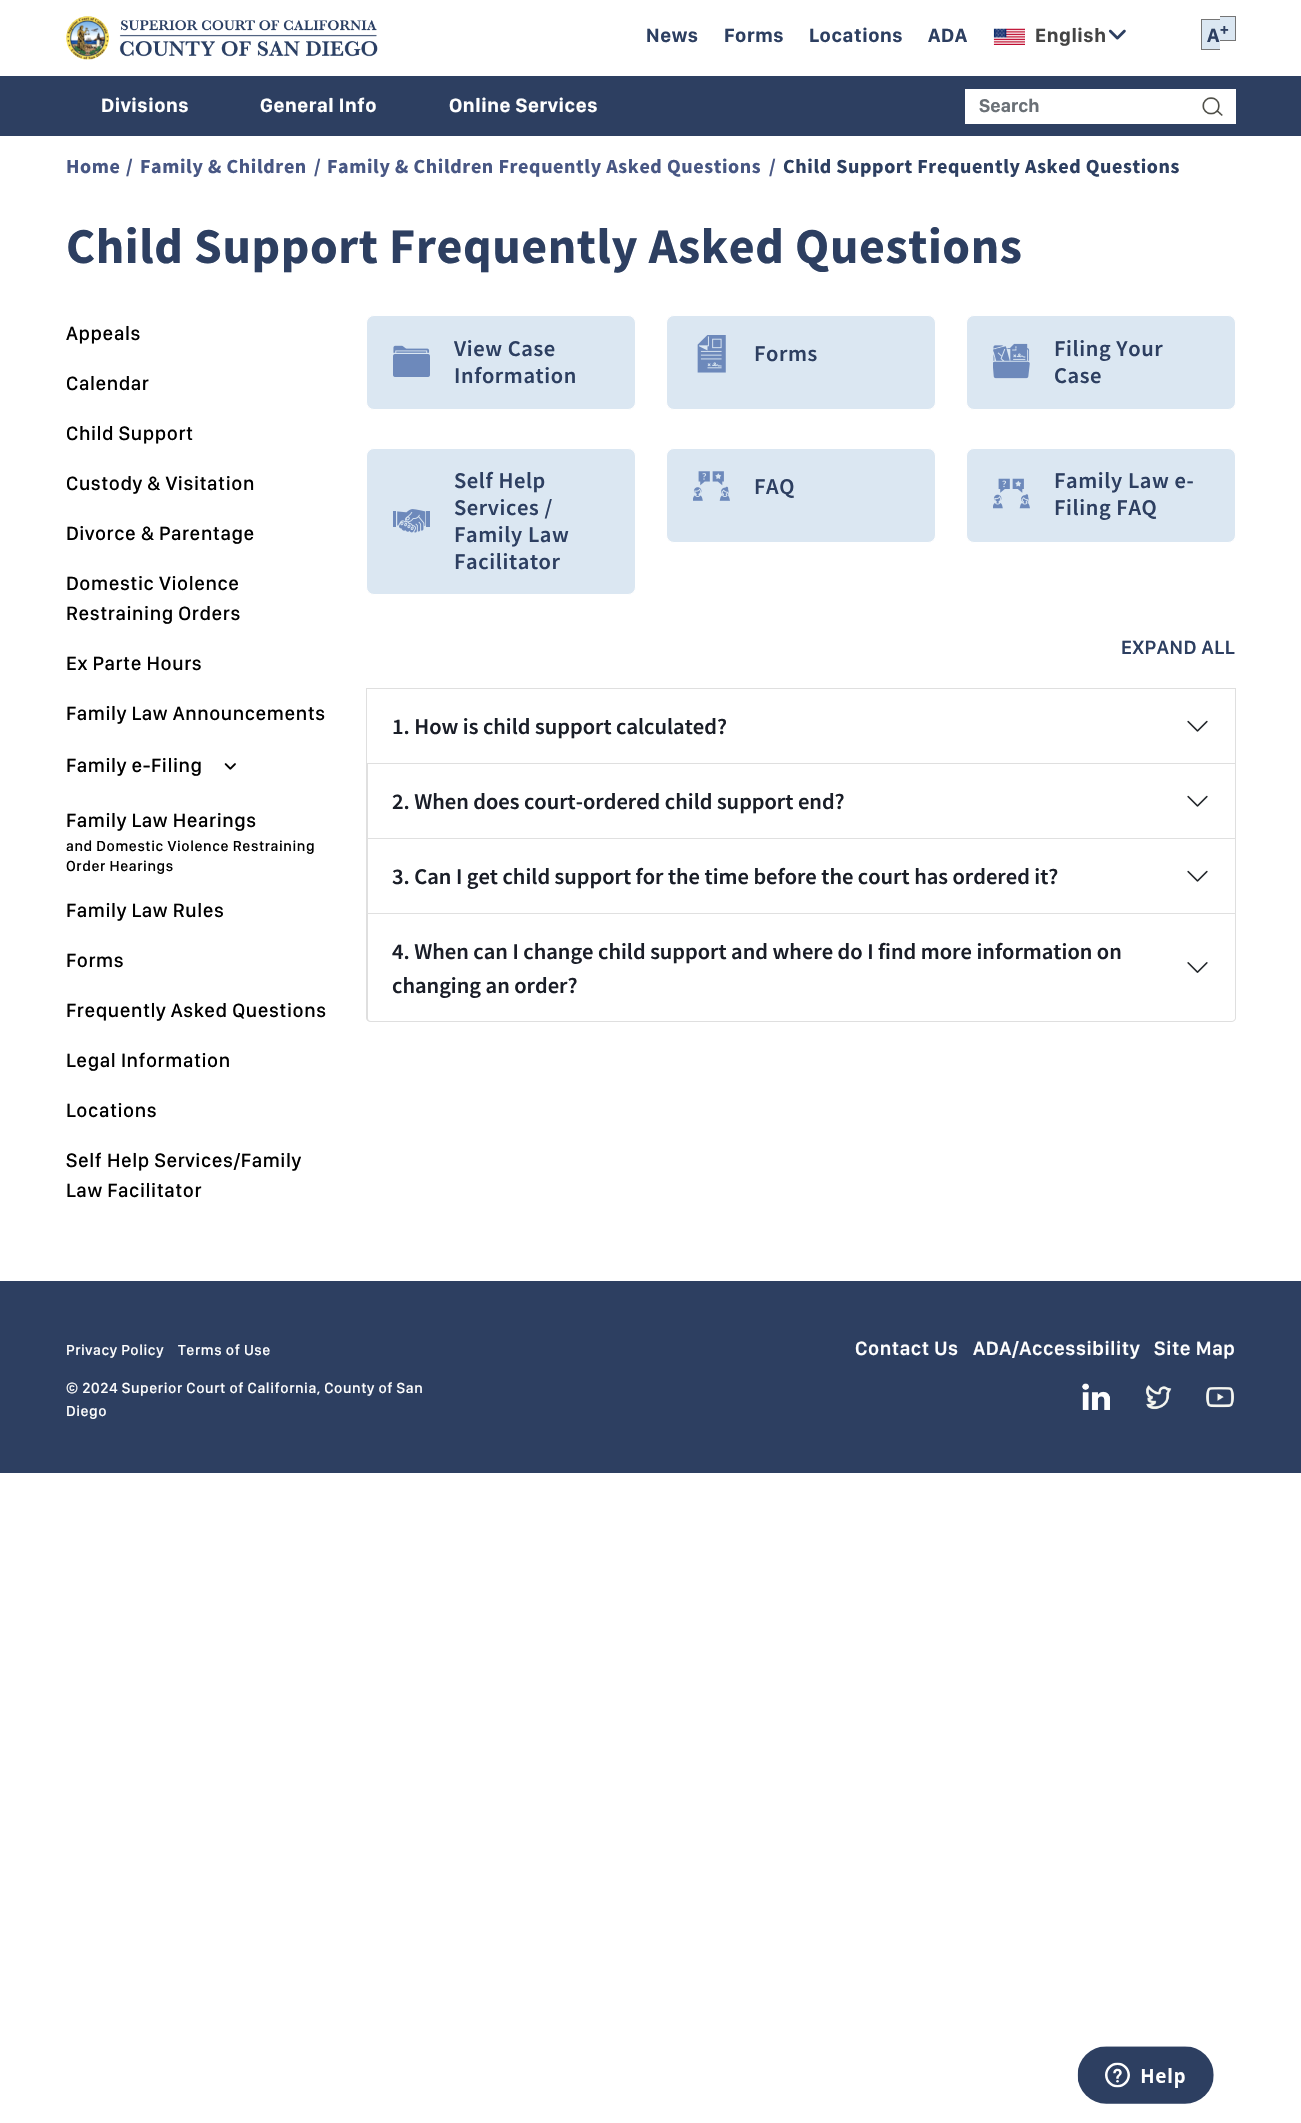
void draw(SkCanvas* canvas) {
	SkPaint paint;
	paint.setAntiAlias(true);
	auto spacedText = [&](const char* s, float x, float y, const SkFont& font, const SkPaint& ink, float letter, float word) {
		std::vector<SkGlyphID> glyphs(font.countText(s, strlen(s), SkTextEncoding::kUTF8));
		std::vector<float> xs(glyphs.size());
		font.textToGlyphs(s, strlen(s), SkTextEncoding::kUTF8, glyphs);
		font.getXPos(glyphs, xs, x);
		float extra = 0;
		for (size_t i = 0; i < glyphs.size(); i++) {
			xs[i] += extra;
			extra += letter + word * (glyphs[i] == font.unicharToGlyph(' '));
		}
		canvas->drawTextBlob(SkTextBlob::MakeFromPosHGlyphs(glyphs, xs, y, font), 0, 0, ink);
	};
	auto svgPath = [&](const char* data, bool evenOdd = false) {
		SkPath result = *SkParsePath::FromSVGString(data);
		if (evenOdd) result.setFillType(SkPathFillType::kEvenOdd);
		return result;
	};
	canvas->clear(0xffffffff);
	canvas->drawImageRect(SkImages::DeferredFromEncodedData(SkData::MakeFromFileName("img1.png")), SkRect::MakeXYWH(66, 16, 312, 44), SkSamplingOptions());
	SkFont f1(fontMgr->matchFamilyStyle("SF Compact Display", SkFontStyle::Bold()), 20);
	f1.setSubpixel(true);
	paint.setColor(0xff2d3f61);
	spacedText("News", 646, 42, f1, paint, 0.6, 0);
	spacedText("Forms", 724, 42, f1, paint, 0.6, 0);
	spacedText("Locations", 809, 42, f1, paint, 0.6, 0);
	spacedText("ADA", 928, 42, f1, paint, 0.6, 0);
	canvas->drawImageRect(SkImages::DeferredFromEncodedData(SkData::MakeFromFileName("img2.png")), SkRect::MakeXYWH(993, 28, 32, 17), SkSamplingOptions());
	paint.setColor(0xff444444);
	spacedText("English", 1035, 42, f1, paint, 0.6, 0);
	canvas->drawImageRect(SkImages::DeferredFromEncodedData(SkData::MakeFromFileName("img3.png")), SkRect::MakeXYWH(1108, 29, 18, 11), SkSamplingOptions());
	paint.setColor(0xffdbe7f2);
	canvas->drawRect(SkRect::MakeXYWH(1202, 20, 18, 29), paint);
	paint.setColor(0xff2d3f61);
	spacedText("A", 1207, 42, f1, paint, 0.6, 0);
	paint.setColor(0xff757575);
	canvas->drawRect(SkRect::MakeXYWH(1201, 49, 19, 1), paint);
	canvas->drawRect(SkRect::MakeXYWH(1201, 19, 19, 1), paint);
	canvas->drawRect(SkRect::MakeXYWH(1201, 19, 1, 31), paint);
	canvas->drawRect(SkRect::MakeXYWH(1220, 16, 16, 1), paint);
	canvas->drawRect(SkRect::MakeXYWH(1235, 16, 1, 25), paint);
	canvas->drawRect(SkRect::MakeXYWH(1220, 40, 16, 1), paint);
	paint.setColor(0xffdbe7f2);
	canvas->drawRect(SkRect::MakeXYWH(1220, 17, 15, 23), paint);
	SkFont f2(fontMgr->matchFamilyStyle("SF Compact Display", SkFontStyle::Bold()), 15);
	f2.setSubpixel(true);
	paint.setColor(0xff2d3f61);
	spacedText("+", 1220, 34, f2, paint, 0.6, 0);
	canvas->drawRect(SkRect::MakeXYWH(0, 76, 1301, 60), paint);
	paint.setColor(0xffffffff);
	spacedText("Divisions", 101, 112, f1, paint, 0.6, 0);
	spacedText("General Info", 260, 112, f1, paint, 0.6, 0);
	spacedText("Online Services", 449, 112, f1, paint, 0.6, 0);
	canvas->drawRect(SkRect::MakeXYWH(965, 89, 271, 35), paint);
	SkFont f3(fontMgr->matchFamilyStyle("SF Compact Display", SkFontStyle::Bold()), 19);
	f3.setSubpixel(true);
	paint.setColor(0xff6a7076);
	canvas->drawString("Search", 979, 112, f3, paint);
	canvas->drawImageRect(SkImages::DeferredFromEncodedData(SkData::MakeFromFileName("img4.png")), SkRect::MakeXYWH(1202, 97, 21, 19), SkSamplingOptions());
	SkFont f4(fontMgr->matchFamilyStyle("Source Sans Pro", SkFontStyle::Bold()), 20);
	f4.setSubpixel(true);
	paint.setColor(0xff485784);
	spacedText("Home", 66, 173, f4, paint, 0.6, 0);
	spacedText("/", 126, 173, f4, paint, 0.6, 0);
	spacedText("Family & Children", 140, 173, f4, paint, 0.6, 0);
	spacedText("/", 314, 173, f4, paint, 0.6, 0);
	spacedText("Family & Children Frequently Asked Questions", 327, 173, f4, paint, 0.6, 0);
	spacedText("/", 769, 173, f4, paint, 0.6, 0);
	paint.setColor(0xff2d3f61);
	spacedText("Child Support Frequently Asked Questions", 783, 173, f4, paint, 0.6, 0);
	SkFont f5(fontMgr->matchFamilyStyle("Source Sans Pro", SkFontStyle::Bold()), 50);
	f5.setSubpixel(true);
	spacedText("Child Support Frequently Asked Questions", 66, 263, f5, paint, 0.6, 0);
	SkFont f6(fontMgr->matchFamilyStyle("SF Compact Display", SkFontStyle(500, SkFontStyle::kNormal_Width, SkFontStyle::kUpright_Slant)), 20);
	f6.setSubpixel(true);
	paint.setColor(0xff000000);
	spacedText("Appeals", 66, 340, f6, paint, 0.6, 0);
	spacedText("Calendar", 66, 390, f6, paint, 0.6, 0);
	spacedText("Child Support", 66, 440, f6, paint, 0.6, 0);
	spacedText("Custody & Visitation", 66, 490, f6, paint, 0.6, 0);
	spacedText("Divorce & Parentage", 66, 540, f6, paint, 0.6, 0);
	spacedText("Domestic Violence", 66, 590, f6, paint, 0.6, 0);
	spacedText("Restraining Orders", 66, 620, f6, paint, 0.6, 0);
	spacedText("Ex Parte Hours", 66, 670, f6, paint, 0.6, 0);
	spacedText("Family Law Announcements", 66, 720, f6, paint, 0.6, 0);
	spacedText("Family e-Filing", 66, 772, f6, paint, 0.6, 0);
	canvas->drawImageRect(SkImages::DeferredFromEncodedData(SkData::MakeFromFileName("img5.png")), SkRect::MakeXYWH(224, 763, 12, 7), SkSamplingOptions());
	spacedText("Family Law Hearings", 66, 827, f6, paint, 0.6, 0);
	SkFont f7(fontMgr->matchFamilyStyle("SF Compact Display", SkFontStyle(500, SkFontStyle::kNormal_Width, SkFontStyle::kUpright_Slant)), 15);
	f7.setSubpixel(true);
	spacedText("and Domestic Violence Restraining", 66, 851, f7, paint, 0.6, 0);
	spacedText("Order Hearings", 66, 871, f7, paint, 0.6, 0);
	spacedText("Family Law Rules", 66, 917, f6, paint, 0.6, 0);
	spacedText("Forms", 66, 967, f6, paint, 0.6, 0);
	spacedText("Frequently Asked Questions", 66, 1017, f6, paint, 0.6, 0);
	spacedText("Legal Information", 66, 1067, f6, paint, 0.6, 0);
	spacedText("Locations", 66, 1117, f6, paint, 0.6, 0);
	spacedText("Self Help Services/Family", 66, 1167, f6, paint, 0.6, 0);
	spacedText("Law Facilitator", 66, 1197, f6, paint, 0.6, 0);
	paint.setColor(0xffdbe7f2);
	canvas->drawRoundRect(SkRect::MakeXYWH(366.5, 315.5, 269, 94), 7.5, 7.5, paint);
	paint.setStroke(true);
	paint.setStrokeWidth(1);
	paint.setColor(0xffffffff);
	canvas->drawRoundRect(SkRect::MakeXYWH(366.5, 315.5, 269, 94), 7.5, 7.5, paint);
	canvas->drawImageRect(SkImages::DeferredFromEncodedData(SkData::MakeFromFileName("img6.png")), SkRect::MakeXYWH(393, 345, 37, 32), SkSamplingOptions());
	SkFont f8(fontMgr->matchFamilyStyle("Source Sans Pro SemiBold", SkFontStyle(600, SkFontStyle::kNormal_Width, SkFontStyle::kUpright_Slant)), 22.5);
	f8.setSubpixel(true);
	paint.setStroke(false);
	paint.setColor(0xff2d3f61);
	spacedText("View Case", 454, 356, f8, paint, 0.6, 0);
	spacedText("Information", 454, 383, f8, paint, 0.6, 0);
	paint.setColor(0xffdbe7f2);
	canvas->drawRoundRect(SkRect::MakeXYWH(666.5, 315.5, 269, 94), 7.5, 7.5, paint);
	paint.setStroke(true);
	paint.setColor(0xffffffff);
	canvas->drawRoundRect(SkRect::MakeXYWH(666.5, 315.5, 269, 94), 7.5, 7.5, paint);
	canvas->drawImageRect(SkImages::DeferredFromEncodedData(SkData::MakeFromFileName("img7.png")), SkRect::MakeXYWH(697, 335, 29, 38), SkSamplingOptions());
	paint.setStroke(false);
	paint.setColor(0xff2d3f61);
	spacedText("Forms", 754, 361, f8, paint, 0.6, 0);
	paint.setColor(0xffdbe7f2);
	canvas->drawRoundRect(SkRect::MakeXYWH(966.5, 315.5, 269, 94), 7.5, 7.5, paint);
	paint.setStroke(true);
	paint.setColor(0xffffffff);
	canvas->drawRoundRect(SkRect::MakeXYWH(966.5, 315.5, 269, 94), 7.5, 7.5, paint);
	canvas->drawImageRect(SkImages::DeferredFromEncodedData(SkData::MakeFromFileName("img8.png")), SkRect::MakeXYWH(993, 343, 37, 36), SkSamplingOptions());
	paint.setStroke(false);
	paint.setColor(0xff2d3f61);
	spacedText("Filing Your", 1054, 356, f8, paint, 0.6, 0);
	spacedText("Case", 1054, 383, f8, paint, 0.6, 0);
	paint.setColor(0xffdbe7f2);
	canvas->drawRoundRect(SkRect::MakeXYWH(366.5, 448.5, 269, 146), 7.5, 7.5, paint);
	paint.setStroke(true);
	paint.setColor(0xffffffff);
	canvas->drawRoundRect(SkRect::MakeXYWH(366.5, 448.5, 269, 146), 7.5, 7.5, paint);
	canvas->drawImageRect(SkImages::DeferredFromEncodedData(SkData::MakeFromFileName("img9.png")), SkRect::MakeXYWH(393, 509, 37, 24), SkSamplingOptions());
	paint.setStroke(false);
	paint.setColor(0xff2d3f61);
	spacedText("Self Help", 454, 488, f8, paint, 0.6, 0);
	spacedText("Services /", 454, 515, f8, paint, 0.6, 0);
	spacedText("Family Law", 454, 542, f8, paint, 0.6, 0);
	spacedText("Facilitator", 454, 569, f8, paint, 0.6, 0);
	paint.setColor(0xffdbe7f2);
	canvas->drawRoundRect(SkRect::MakeXYWH(666.5, 448.5, 269, 94), 7.5, 7.5, paint);
	paint.setStroke(true);
	paint.setColor(0xffffffff);
	canvas->drawRoundRect(SkRect::MakeXYWH(666.5, 448.5, 269, 94), 7.5, 7.5, paint);
	canvas->drawImageRect(SkImages::DeferredFromEncodedData(SkData::MakeFromFileName("img10.png")), SkRect::MakeXYWH(693, 471, 37, 30), SkSamplingOptions());
	paint.setStroke(false);
	paint.setColor(0xff2d3f61);
	spacedText("FAQ", 754, 494, f8, paint, 0.6, 0);
	paint.setColor(0xffdbe7f2);
	canvas->drawRoundRect(SkRect::MakeXYWH(966.5, 448.5, 269, 94), 7.5, 7.5, paint);
	paint.setStroke(true);
	paint.setColor(0xffffffff);
	canvas->drawRoundRect(SkRect::MakeXYWH(966.5, 448.5, 269, 94), 7.5, 7.5, paint);
	canvas->drawImageRect(SkImages::DeferredFromEncodedData(SkData::MakeFromFileName("img11.png")), SkRect::MakeXYWH(993, 478, 37, 31), SkSamplingOptions());
	paint.setStroke(false);
	paint.setColor(0xff2d3f61);
	spacedText("Family Law e-", 1054, 488, f8, paint, 0.6, 0);
	spacedText("Filing FAQ", 1054, 515, f8, paint, 0.6, 0);
	SkFont f9(fontMgr->matchFamilyStyle("SF Compact Display", SkFontStyle(600, SkFontStyle::kNormal_Width, SkFontStyle::kUpright_Slant)), 20);
	f9.setSubpixel(true);
	spacedText("EXPAND ALL", 1121, 654, f9, paint, 0.6, 0);
	paint.setStroke(true);
	paint.setColor(0xffdfdfdf);
	canvas->drawRect(SkRect::MakeXYWH(366.5, 688.5, 869, 75), paint);
	paint.setStroke(false);
	paint.setColor(0xff1a1e28);
	canvas->drawString("1. How is child support calculated?", 392, 734, f8, paint);
	canvas->drawImageRect(SkImages::DeferredFromEncodedData(SkData::MakeFromFileName("img12.png")), SkRect::MakeXYWH(1187, 720, 21, 12), SkSamplingOptions());
	paint.setColor(0xffdfdfdf);
	canvas->drawPath(svgPath("M1236 764V839L1235 838V764Z"), paint);
	paint.setColor(0x1f000000);
	canvas->drawPath(svgPath("M1236 839H366L368 838H1235Z"), paint);
	canvas->drawPath(svgPath("M366 839V764H368V838Z"), paint);
	paint.setColor(0xff1a1e28);
	canvas->drawString("2. When does court-ordered child support end?", 392, 809, f8, paint);
	canvas->drawImageRect(SkImages::DeferredFromEncodedData(SkData::MakeFromFileName("img12.png")), SkRect::MakeXYWH(1187, 795, 21, 12), SkSamplingOptions());
	paint.setColor(0xffdfdfdf);
	canvas->drawPath(svgPath("M1236 839V914L1235 912V839Z"), paint);
	paint.setColor(0x1f000000);
	canvas->drawPath(svgPath("M1236 914H366L368 912H1235Z"), paint);
	canvas->drawPath(svgPath("M366 914V839H368V912Z"), paint);
	paint.setColor(0xffffffff);
	canvas->drawRect(SkRect::MakeXYWH(368, 912, 867, 1), paint);
	paint.setColor(0xff1a1e28);
	canvas->drawString("3. Can I get child support for the time before the court has ordered it?", 392, 884, f8, paint);
	canvas->drawImageRect(SkImages::DeferredFromEncodedData(SkData::MakeFromFileName("img12.png")), SkRect::MakeXYWH(1187, 870, 21, 12), SkSamplingOptions());
	paint.setColor(0xffdfdfdf);
	canvas->drawPath(svgPath("M366 914H1236V1018C1236 1020 1234 1022 1231 1022H371C368 1022 366 1020 366 1018ZM368 914H1235V1018C1235 1020 1233 1021 1231 1021H371C369 1021 368 1020 368 1018Z", true), paint);
	paint.setColor(0xffffffff);
	canvas->drawPath(svgPath("M368 914H1235V1017C1235 1019 1233 1021 1231 1021H372C370 1021 368 1019 368 1017Z"), paint);
	paint.setColor(0xff1a1e28);
	canvas->drawString("4. When can I change child support and where do I find more information on", 392, 959, f8, paint);
	canvas->drawString("changing an order?", 392, 993, f8, paint);
	canvas->drawImageRect(SkImages::DeferredFromEncodedData(SkData::MakeFromFileName("img13.png")), SkRect::MakeXYWH(1187, 962, 21, 11), SkSamplingOptions());
	paint.setColor(0xff2d3f61);
	canvas->drawRect(SkRect::MakeXYWH(0, 1281, 1301, 192), paint);
	paint.setColor(0xffffffff);
	spacedText("Privacy Policy", 66, 1355, f7, paint, 0.6, 0);
	spacedText("Terms of Use", 178, 1355, f7, paint, 0.6, 0);
	spacedText("© 2024 Superior Court of California, County of San", 66, 1393, f7, paint, 0.6, 0);
	spacedText("Diego", 66, 1416, f7, paint, 0.6, 0);
	spacedText("Contact Us", 855, 1355, f9, paint, 0.6, 0);
	spacedText("ADA/Accessibility", 973, 1355, f9, paint, 0.6, 0);
	spacedText("Site Map", 1154, 1355, f9, paint, 0.6, 0);
	canvas->drawImageRect(SkImages::DeferredFromEncodedData(SkData::MakeFromFileName("img14.png")), SkRect::MakeXYWH(1082, 1383, 28, 27), SkSamplingOptions());
	canvas->drawImageRect(SkImages::DeferredFromEncodedData(SkData::MakeFromFileName("img15.png")), SkRect::MakeXYWH(1146, 1385, 26, 25), SkSamplingOptions());
	canvas->drawImageRect(SkImages::DeferredFromEncodedData(SkData::MakeFromFileName("img16.png")), SkRect::MakeXYWH(1206, 1387, 28, 21), SkSamplingOptions());
	canvas->drawImageRect(SkImages::DeferredFromEncodedData(SkData::MakeFromFileName("img17.png")), SkRect::MakeXYWH(1077, 2046, 137, 58), SkSamplingOptions());
}
